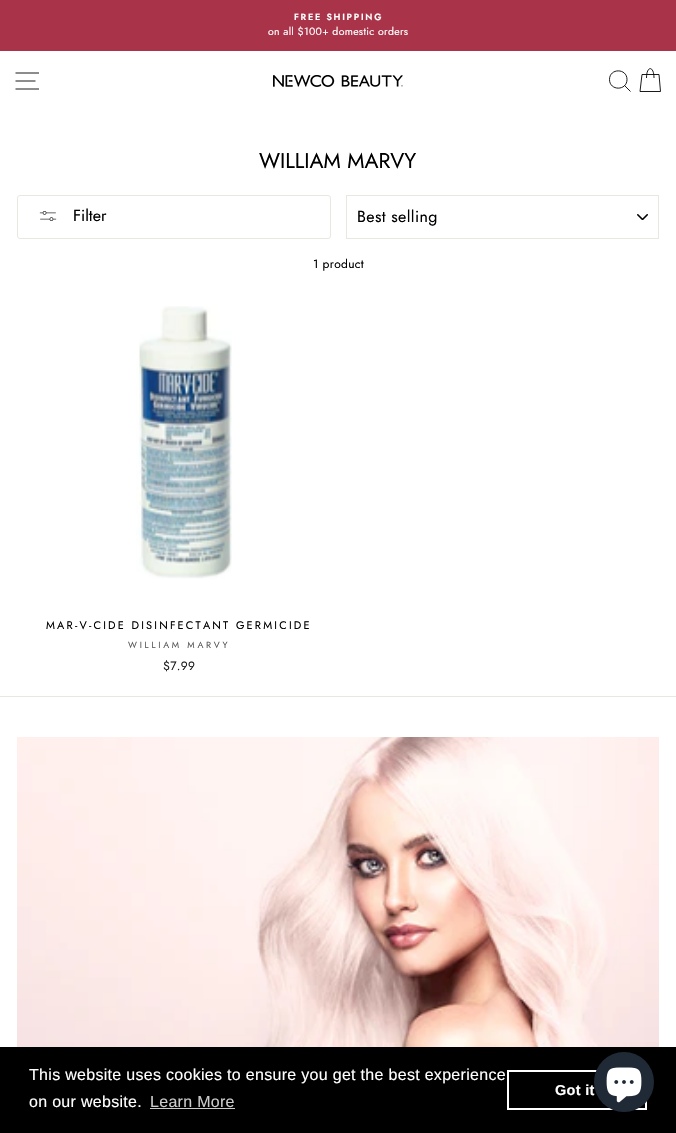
void draw(SkCanvas* canvas) {
	SkPaint paint;
	paint.setAntiAlias(true);
	auto spacedText = [&](const char* s, float x, float y, const SkFont& font, const SkPaint& ink, float letter, float word) {
		std::vector<SkGlyphID> glyphs(font.countText(s, strlen(s), SkTextEncoding::kUTF8));
		std::vector<float> xs(glyphs.size());
		font.textToGlyphs(s, strlen(s), SkTextEncoding::kUTF8, glyphs);
		font.getXPos(glyphs, xs, x);
		float extra = 0;
		for (size_t i = 0; i < glyphs.size(); i++) {
			xs[i] += extra;
			extra += letter + word * (glyphs[i] == font.unicharToGlyph(' '));
		}
		canvas->drawTextBlob(SkTextBlob::MakeFromPosHGlyphs(glyphs, xs, y, font), 0, 0, ink);
	};
	auto svgPath = [&](const char* data, bool evenOdd = false) {
		SkPath result = *SkParsePath::FromSVGString(data);
		if (evenOdd) result.setFillType(SkPathFillType::kEvenOdd);
		return result;
	};
	canvas->clear(0xffffffff);
	paint.setColor(0xffa93349);
	canvas->drawRect(SkRect::MakeXYWH(0, 0, 676, 51), paint);
	SkFont f1(fontMgr->matchFamilyStyle("Jost", SkFontStyle(600, SkFontStyle::kNormal_Width, SkFontStyle::kUpright_Slant)), 9);
	f1.setSubpixel(true);
	paint.setColor(0xffffffff);
	spacedText("FREE SHIPPING", 294, 20, f1, paint, 1.75, 0);
	SkFont f2(fontMgr->matchFamilyStyle("Jost", SkFontStyle::Normal()), 10.5);
	f2.setSubpixel(true);
	spacedText("on all $100+ domestic orders", 268, 35, f2, paint, 0.3, 0);
	paint.setStroke(true);
	paint.setStrokeWidth(0.9);
	paint.setColor(0xff000000);
	canvas->drawPath(svgPath("M15.5 73H39M15.5 81H35.5M15.5 89H39"), paint);
	canvas->drawImageRect(SkImages::DeferredFromEncodedData(SkData::MakeFromFileName("img1.png")), SkRect::MakeXYWH(273, 75, 130, 12), SkSamplingOptions());
	canvas->drawPath(svgPath("M627 79.5C627 91 609.5 91 609.5 79.5C609.5 68 627 68 627 79.5ZM630.5 91.5L624.5 85.5M646.5 78C646.5 65.5 654 65.5 654 78M642 74.5H659L660.5 91.5H640Z"), paint);
	SkFont f3(fontMgr->matchFamilyStyle("Jost", SkFontStyle::Normal()), 21.25);
	f3.setSubpixel(true);
	paint.setStroke(false);
	canvas->drawString("WILLIAM MARVY", 259, 168, f3, paint);
	paint.setStroke(true);
	paint.setStrokeWidth(1);
	paint.setColor(0xffe8e8e1);
	canvas->drawRoundRect(SkRect::MakeXYWH(17.5, 195.5, 313, 43), 2.5, 2.5, paint);
	canvas->drawImageRect(SkImages::DeferredFromEncodedData(SkData::MakeFromFileName("img2.png")), SkRect::MakeXYWH(39, 211, 18, 10), SkSamplingOptions());
	SkFont f4(fontMgr->matchFamilyStyle("Jost", SkFontStyle::Normal()), 16);
	f4.setSubpixel(true);
	paint.setStroke(false);
	paint.setColor(0xff000000);
	canvas->drawString("Filter", 73, 221, f4, paint);
	canvas->drawImageRect(SkImages::DeferredFromEncodedData(SkData::MakeFromFileName("img3.png")), SkRect::MakeXYWH(637, 214, 11, 6), SkSamplingOptions());
	paint.setStroke(true);
	paint.setColor(0xffe8e8e1);
	canvas->drawRect(SkRect::MakeXYWH(346.5, 195.5, 312, 43), paint);
	paint.setStroke(false);
	paint.setColor(0xff000000);
	spacedText("Best selling", 357, 222, f4, paint, 0.4, 0);
	SkFont f5(fontMgr->matchFamilyStyle("Jost", SkFontStyle::Normal()), 12);
	f5.setSubpixel(true);
	spacedText("1 product", 313, 268, f5, paint, 0.3, 0);
	canvas->drawImageRect(SkImages::DeferredFromEncodedData(SkData::MakeFromFileName("img4.png")), SkRect::MakeXYWH(136, 306, 96, 273), SkSamplingOptions());
	SkFont f6(fontMgr->matchFamilyStyle("Jost", SkFontStyle::Normal()), 11);
	f6.setSubpixel(true);
	spacedText("MAR-V-CIDE DISINFECTANT GERMICIDE", 46, 629, f6, paint, 2.2, 0);
	SkFont f7(fontMgr->matchFamilyStyle("Jost", SkFontStyle::Normal()), 9);
	f7.setSubpixel(true);
	paint.setColor(0xff595959);
	spacedText("WILLIAM MARVY", 128, 648, f7, paint, 2.75, 0);
	paint.setColor(0xff1c1d1d);
	spacedText("$7.99", 163, 670, f5, paint, 0.3, 0);
	paint.setColor(0xffe8e8e1);
	canvas->drawRect(SkRect::MakeXYWH(0, 696, 676, 1), paint);
	canvas->drawImageRect(SkImages::DeferredFromEncodedData(SkData::MakeFromFileName("img5.png")), SkRect::MakeXYWH(17, 737, 642, 310), SkSamplingOptions());
	paint.setColor(0xff000000);
	canvas->drawRect(SkRect::MakeXYWH(0, 1047, 676, 86), paint);
	SkFont f8(fontMgr->matchFamilyStyle("Liberation Sans", SkFontStyle::Normal()), 16);
	f8.setSubpixel(true);
	paint.setColor(0xffffffff);
	spacedText("This website uses cookies to ensure you get the best experience", 29, 1080, f8, paint, 0.3, 0);
	spacedText("on our website.", 29, 1107, f8, paint, 0.3, 0);
	paint.setColor(0xffcccccc);
	spacedText("Learn More", 150, 1107, f8, paint, 0.3, 0);
	canvas->drawRect(SkRect::MakeXYWH(150, 1108, 85, 1), paint);
	paint.setStroke(true);
	paint.setStrokeWidth(2);
	paint.setColor(0xffffffff);
	canvas->drawRect(SkRect::MakeXYWH(508, 1071, 138, 38), paint);
	SkFont f9(fontMgr->matchFamilyStyle("Liberation Sans", SkFontStyle::Bold()), 14.5);
	f9.setSubpixel(true);
	paint.setStroke(false);
	spacedText("Got it", 555, 1095, f9, paint, 0.3, 0);
	paint.setColor(0xff202a36);
	canvas->drawCircle(624, 1082, 30, paint);
	canvas->drawImageRect(SkImages::DeferredFromEncodedData(SkData::MakeFromFileName("img6.png")), SkRect::MakeXYWH(606, 1067, 36, 36), SkSamplingOptions());
}
